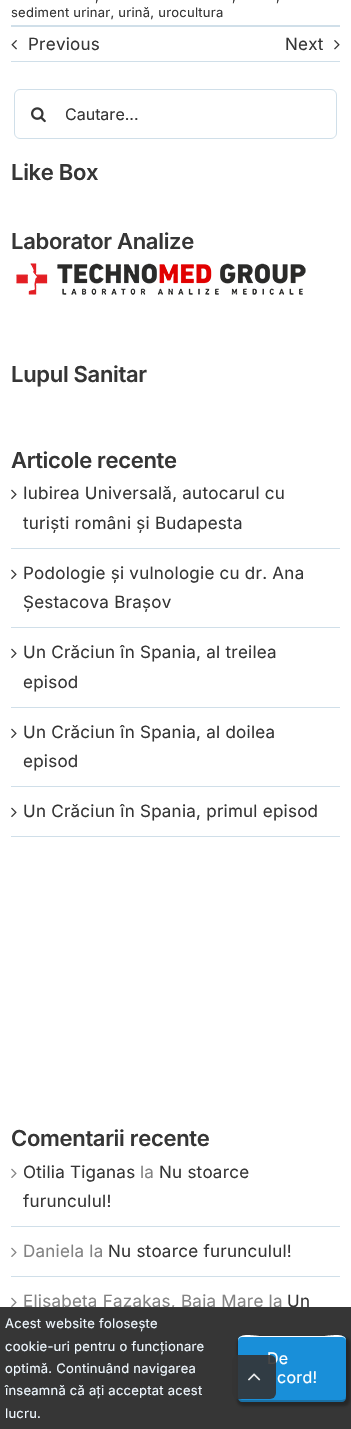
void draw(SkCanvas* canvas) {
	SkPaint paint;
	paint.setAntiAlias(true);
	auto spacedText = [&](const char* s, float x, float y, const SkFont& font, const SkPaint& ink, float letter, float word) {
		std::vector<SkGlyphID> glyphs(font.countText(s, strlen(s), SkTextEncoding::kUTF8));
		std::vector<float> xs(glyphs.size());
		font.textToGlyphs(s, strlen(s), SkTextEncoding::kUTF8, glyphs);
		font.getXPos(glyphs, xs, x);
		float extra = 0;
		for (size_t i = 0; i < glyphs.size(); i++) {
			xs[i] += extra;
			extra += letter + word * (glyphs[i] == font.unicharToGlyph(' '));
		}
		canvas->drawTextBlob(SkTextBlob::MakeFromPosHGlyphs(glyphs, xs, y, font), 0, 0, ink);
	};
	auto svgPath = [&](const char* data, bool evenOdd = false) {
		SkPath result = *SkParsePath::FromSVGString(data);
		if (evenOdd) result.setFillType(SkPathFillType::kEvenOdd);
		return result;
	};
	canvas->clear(0xffffffff);
	paint.setColor(0xffd0dfe9);
	canvas->drawRect(SkRect::MakeXYWH(11, 25, 329, 2), paint);
	SkFont f1(fontMgr->matchFamilyStyle("Inter", SkFontStyle::Normal()), 13);
	f1.setSubpixel(true);
	paint.setColor(0xff363636);
	spacedText(",", 95, 1, f1, paint, 0.25, 0);
	spacedText(",", 232, 1, f1, paint, 0.25, 0);
	spacedText(",", 276, 1, f1, paint, 0.25, 0);
	spacedText("sediment urinar, urină, urocultura", 11, 17, f1, paint, 0.25, 0);
	paint.setColor(0xffd0dfe9);
	canvas->drawRect(SkRect::MakeXYWH(11, 61, 329, 1), paint);
	canvas->drawImageRect(SkImages::DeferredFromEncodedData(SkData::MakeFromFileName("img1.png")), SkRect::MakeXYWH(11, 40, 6, 10), SkSamplingOptions());
	SkFont f2(fontMgr->matchFamilyStyle("Inter", SkFontStyle::Normal()), 17);
	f2.setSubpixel(true);
	paint.setColor(0xff363636);
	spacedText("Previous", 28, 50, f2, paint, 0.25, 0);
	spacedText("Next", 285, 50, f2, paint, 0.25, 0);
	canvas->drawImageRect(SkImages::DeferredFromEncodedData(SkData::MakeFromFileName("img2.png")), SkRect::MakeXYWH(334, 40, 6, 10), SkSamplingOptions());
	paint.setStroke(true);
	paint.setStrokeWidth(1);
	paint.setColor(0xffd0dfe9);
	canvas->drawRoundRect(SkRect::MakeXYWH(14.5, 89.5, 322, 49), 5.5, 5.5, paint);
	canvas->drawImageRect(SkImages::DeferredFromEncodedData(SkData::MakeFromFileName("img3.png")), SkRect::MakeXYWH(31, 107, 15, 16), SkSamplingOptions());
	SkFont f3(fontMgr->matchFamilyStyle("Inter", SkFontStyle::Normal()), 16);
	f3.setSubpixel(true);
	paint.setStroke(false);
	paint.setColor(0xff363636);
	canvas->drawString("Cautare...", 65, 120, f3, paint);
	SkFont f4(fontMgr->matchFamilyStyle("Inter", SkFontStyle(600, SkFontStyle::kNormal_Width, SkFontStyle::kUpright_Slant)), 22);
	f4.setSubpixel(true);
	spacedText("Like Box", 11, 180, f4, paint, -0.3, 0);
	spacedText("Laborator Analize", 11, 249, f4, paint, -0.3, 0);
	canvas->drawImageRect(SkImages::DeferredFromEncodedData(SkData::MakeFromFileName("img4.png")), SkRect::MakeXYWH(16, 263, 290, 32), SkSamplingOptions());
	spacedText("Lupul Sanitar", 11, 382, f4, paint, -0.3, 0);
	spacedText("Articole recente", 11, 468, f4, paint, -0.3, 0);
	paint.setColor(0xffd0dfe9);
	canvas->drawRect(SkRect::MakeXYWH(11, 548, 329, 1), paint);
	canvas->drawImageRect(SkImages::DeferredFromEncodedData(SkData::MakeFromFileName("img5.png")), SkRect::MakeXYWH(11, 489, 6, 11), SkSamplingOptions());
	paint.setColor(0xff363636);
	spacedText("Iubirea Universală, autocarul cu", 23, 499, f2, paint, 0.25, 0);
	spacedText("turiști români și Budapesta", 23, 529, f2, paint, 0.25, 0);
	paint.setColor(0xffd0dfe9);
	canvas->drawRect(SkRect::MakeXYWH(11, 627, 329, 1), paint);
	canvas->drawImageRect(SkImages::DeferredFromEncodedData(SkData::MakeFromFileName("img5.png")), SkRect::MakeXYWH(11, 569, 6, 11), SkSamplingOptions());
	paint.setColor(0xff363636);
	spacedText("Podologie și vulnologie cu dr. Ana", 23, 579, f2, paint, 0.25, 0);
	spacedText("Șestacova Brașov", 23, 608, f2, paint, 0.25, 0);
	paint.setColor(0xffd0dfe9);
	canvas->drawRect(SkRect::MakeXYWH(11, 707, 329, 1), paint);
	canvas->drawImageRect(SkImages::DeferredFromEncodedData(SkData::MakeFromFileName("img5.png")), SkRect::MakeXYWH(11, 648, 6, 11), SkSamplingOptions());
	paint.setColor(0xff363636);
	spacedText("Un Crăciun în Spania, al treilea", 23, 658, f2, paint, 0.25, 0);
	spacedText("episod", 23, 688, f2, paint, 0.25, 0);
	paint.setColor(0xffd0dfe9);
	canvas->drawRect(SkRect::MakeXYWH(11, 786, 329, 1), paint);
	canvas->drawImageRect(SkImages::DeferredFromEncodedData(SkData::MakeFromFileName("img5.png")), SkRect::MakeXYWH(11, 728, 6, 11), SkSamplingOptions());
	paint.setColor(0xff363636);
	spacedText("Un Crăciun în Spania, al doilea", 23, 738, f2, paint, 0.25, 0);
	spacedText("episod", 23, 767, f2, paint, 0.25, 0);
	paint.setColor(0xffd0dfe9);
	canvas->drawRect(SkRect::MakeXYWH(11, 836, 329, 1), paint);
	canvas->drawImageRect(SkImages::DeferredFromEncodedData(SkData::MakeFromFileName("img5.png")), SkRect::MakeXYWH(11, 807, 6, 11), SkSamplingOptions());
	paint.setColor(0xff363636);
	spacedText("Un Crăciun în Spania, primul episod", 23, 817, f2, paint, 0.25, 0);
	spacedText("Comentarii recente", 11, 1146, f4, paint, -0.3, 0);
	paint.setColor(0xffd0dfe9);
	canvas->drawRect(SkRect::MakeXYWH(11, 1226, 329, 1), paint);
	canvas->drawImageRect(SkImages::DeferredFromEncodedData(SkData::MakeFromFileName("img6.png")), SkRect::MakeXYWH(11, 1168, 6, 10), SkSamplingOptions());
	paint.setColor(0xff363636);
	spacedText("Otilia Tiganas", 23, 1178, f2, paint, 0.25, 0);
	paint.setColor(0xff838383);
	spacedText("la", 140, 1178, f2, paint, 0.25, 0);
	paint.setColor(0xff363636);
	spacedText("Nu stoarce", 159, 1178, f2, paint, 0.25, 0);
	spacedText("furunculul!", 23, 1207, f2, paint, 0.25, 0);
	paint.setColor(0xffd0dfe9);
	canvas->drawRect(SkRect::MakeXYWH(11, 1276, 329, 1), paint);
	canvas->drawImageRect(SkImages::DeferredFromEncodedData(SkData::MakeFromFileName("img6.png")), SkRect::MakeXYWH(11, 1247, 6, 10), SkSamplingOptions());
	paint.setColor(0xff838383);
	spacedText("Daniela la", 23, 1257, f2, paint, 0.25, 0);
	paint.setColor(0xff363636);
	spacedText("Nu stoarce furunculul!", 108, 1257, f2, paint, 0.25, 0);
	canvas->drawImageRect(SkImages::DeferredFromEncodedData(SkData::MakeFromFileName("img6.png")), SkRect::MakeXYWH(11, 1297, 6, 10), SkSamplingOptions());
	paint.setColor(0xff838383);
	spacedText("Elisabeta Fazakas, Baia Mare la", 23, 1307, f2, paint, 0.25, 0);
	paint.setColor(0xff363636);
	spacedText("Un", 287, 1307, f2, paint, 0.25, 0);
	canvas->drawRect(SkRect::MakeXYWH(0, 1307, 351, 122), paint);
	paint.setColor(0xffeff8ff);
	spacedText("Acest website folosește", 5, 1328, f1, paint, 0.25, 0);
	spacedText("cookie-uri pentru o funcționare", 5, 1351, f1, paint, 0.25, 0);
	spacedText("optimă. Continuând navigarea", 5, 1373, f1, paint, 0.25, 0);
	spacedText("înseamnă că ați acceptat acest", 5, 1395, f1, paint, 0.25, 0);
	spacedText("lucru.", 5, 1418, f1, paint, 0.25, 0);
	paint.setColor(0x4d000000);
	paint.setMaskFilter(SkMaskFilter::MakeBlur(kNormal_SkBlurStyle, 1.5));
	canvas->drawRoundRect(SkRect::MakeXYWH(237, 1337, 113, 69), 6, 6, paint);
	paint.setMaskFilter(nullptr);
	paint.setColor(0xff196fa4);
	canvas->drawPath(svgPath("M238 1396V1398C238 1400 240 1402 242 1402H342C344 1402 346 1400 346 1398V1396C346 1398 344 1400 342 1400H242C240 1400 238 1398 238 1396Z"), paint);
	paint.setColor(0xff198fd9);
	canvas->drawRoundRect(SkRect::MakeXYWH(238, 1336, 108, 64), 4, 4, paint);
	paint.setColor(0xffffffff);
	canvas->drawPath(svgPath("M242 1337H342C344 1337 346 1339 346 1341C346 1332 329 1336 325 1336H259C255 1336 238 1332 238 1341C238 1339 240 1337 242 1337Z"), paint);
	spacedText("De", 267, 1364, f3, paint, 0.25, 0);
	spacedText("cord!", 277, 1383, f3, paint, 0.25, 0);
	paint.setColor(0xe6333333);
	canvas->drawRoundRect(SkRect::MakeXYWH(232, 1355, 44, 44), 6, 6, paint);
	canvas->drawImageRect(SkImages::DeferredFromEncodedData(SkData::MakeFromFileName("img7.png")), SkRect::MakeXYWH(248, 1373, 13, 8), SkSamplingOptions());
}
